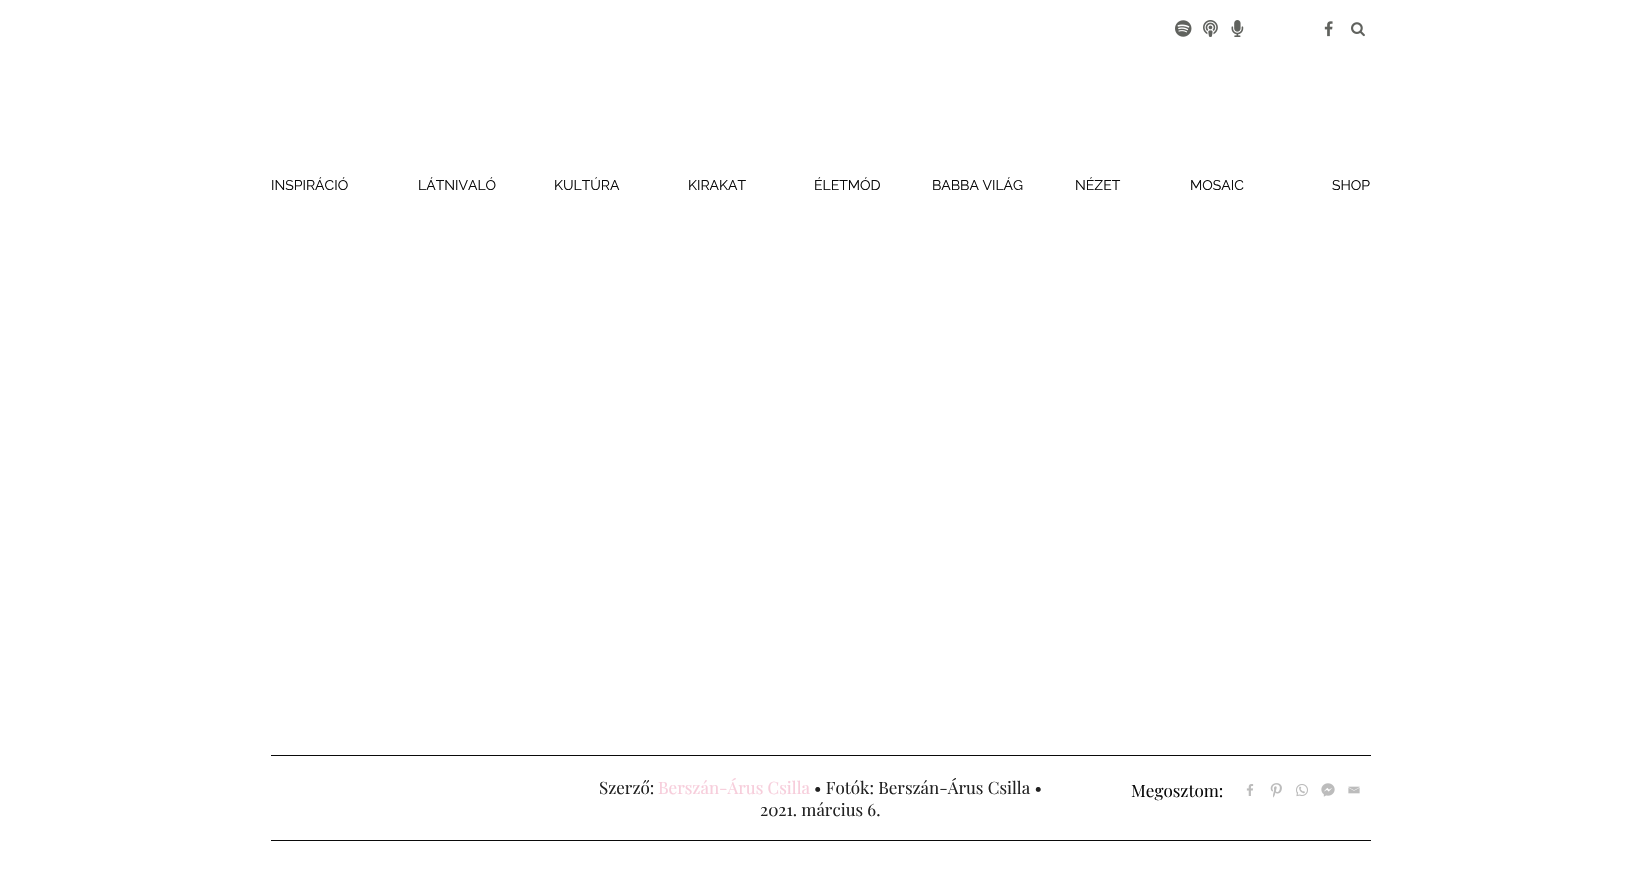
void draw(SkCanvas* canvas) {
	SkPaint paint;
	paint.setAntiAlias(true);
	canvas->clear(0xffffffff);
	canvas->drawImageRect(SkImages::DeferredFromEncodedData(SkData::MakeFromFileName("img1.png")), SkRect::MakeXYWH(1175, 20, 17, 17), SkSamplingOptions());
	canvas->drawImageRect(SkImages::DeferredFromEncodedData(SkData::MakeFromFileName("img2.png")), SkRect::MakeXYWH(1203, 20, 15, 17), SkSamplingOptions());
	canvas->drawImageRect(SkImages::DeferredFromEncodedData(SkData::MakeFromFileName("img3.png")), SkRect::MakeXYWH(1231, 20, 13, 17), SkSamplingOptions());
	canvas->drawImageRect(SkImages::DeferredFromEncodedData(SkData::MakeFromFileName("img4.png")), SkRect::MakeXYWH(1324, 21, 9, 16), SkSamplingOptions());
	canvas->drawImageRect(SkImages::DeferredFromEncodedData(SkData::MakeFromFileName("img5.png")), SkRect::MakeXYWH(1351, 22, 14, 15), SkSamplingOptions());
	SkFont f1(fontMgr->matchFamilyStyle("Raleway", SkFontStyle::Normal()), 14);
	f1.setSubpixel(true);
	paint.setColor(0xff0a0a0a);
	canvas->drawString("INSPIRÁCIÓ", 271, 190, f1, paint);
	canvas->drawString("LÁTNIVALÓ", 418, 190, f1, paint);
	canvas->drawString("KULTÚRA", 554, 190, f1, paint);
	canvas->drawString("KIRAKAT", 688, 190, f1, paint);
	canvas->drawString("ÉLETMÓD", 814, 190, f1, paint);
	canvas->drawString("BABBA VILÁG", 932, 190, f1, paint);
	canvas->drawString("NÉZET", 1075, 190, f1, paint);
	canvas->drawString("MOSAIC", 1190, 190, f1, paint);
	canvas->drawString("SHOP", 1332, 190, f1, paint);
	canvas->drawRect(SkRect::MakeXYWH(271, 755, 1100, 1), paint);
	SkFont f2(fontMgr->matchFamilyStyle("Playfair Display", SkFontStyle::Normal()), 17);
	f2.setSubpixel(true);
	paint.setColor(0xff222222);
	canvas->drawString("Szerző:", 599, 794, f2, paint);
	paint.setColor(0xfff7cddb);
	canvas->drawString("Berszán-Árus Csilla", 658, 794, f2, paint);
	paint.setColor(0xff222222);
	canvas->drawString("• Fotók: Berszán-Árus Csilla •", 814, 794, f2, paint);
	canvas->drawString("2021. március 6.", 760, 816, f2, paint);
	paint.setColor(0xff0a0a0a);
	canvas->drawString("Megosztom:", 1131, 797, f2, paint);
	canvas->drawImageRect(SkImages::DeferredFromEncodedData(SkData::MakeFromFileName("img6.png")), SkRect::MakeXYWH(1246, 784, 8, 12), SkSamplingOptions());
	canvas->drawImageRect(SkImages::DeferredFromEncodedData(SkData::MakeFromFileName("img7.png")), SkRect::MakeXYWH(1270, 783, 12, 15), SkSamplingOptions());
	canvas->drawImageRect(SkImages::DeferredFromEncodedData(SkData::MakeFromFileName("img8.png")), SkRect::MakeXYWH(1296, 784, 12, 13), SkSamplingOptions());
	canvas->drawImageRect(SkImages::DeferredFromEncodedData(SkData::MakeFromFileName("img9.png")), SkRect::MakeXYWH(1321, 783, 14, 14), SkSamplingOptions());
	canvas->drawImageRect(SkImages::DeferredFromEncodedData(SkData::MakeFromFileName("img10.png")), SkRect::MakeXYWH(1348, 786, 12, 8), SkSamplingOptions());
	canvas->drawRect(SkRect::MakeXYWH(271, 840, 1100, 1), paint);
}
